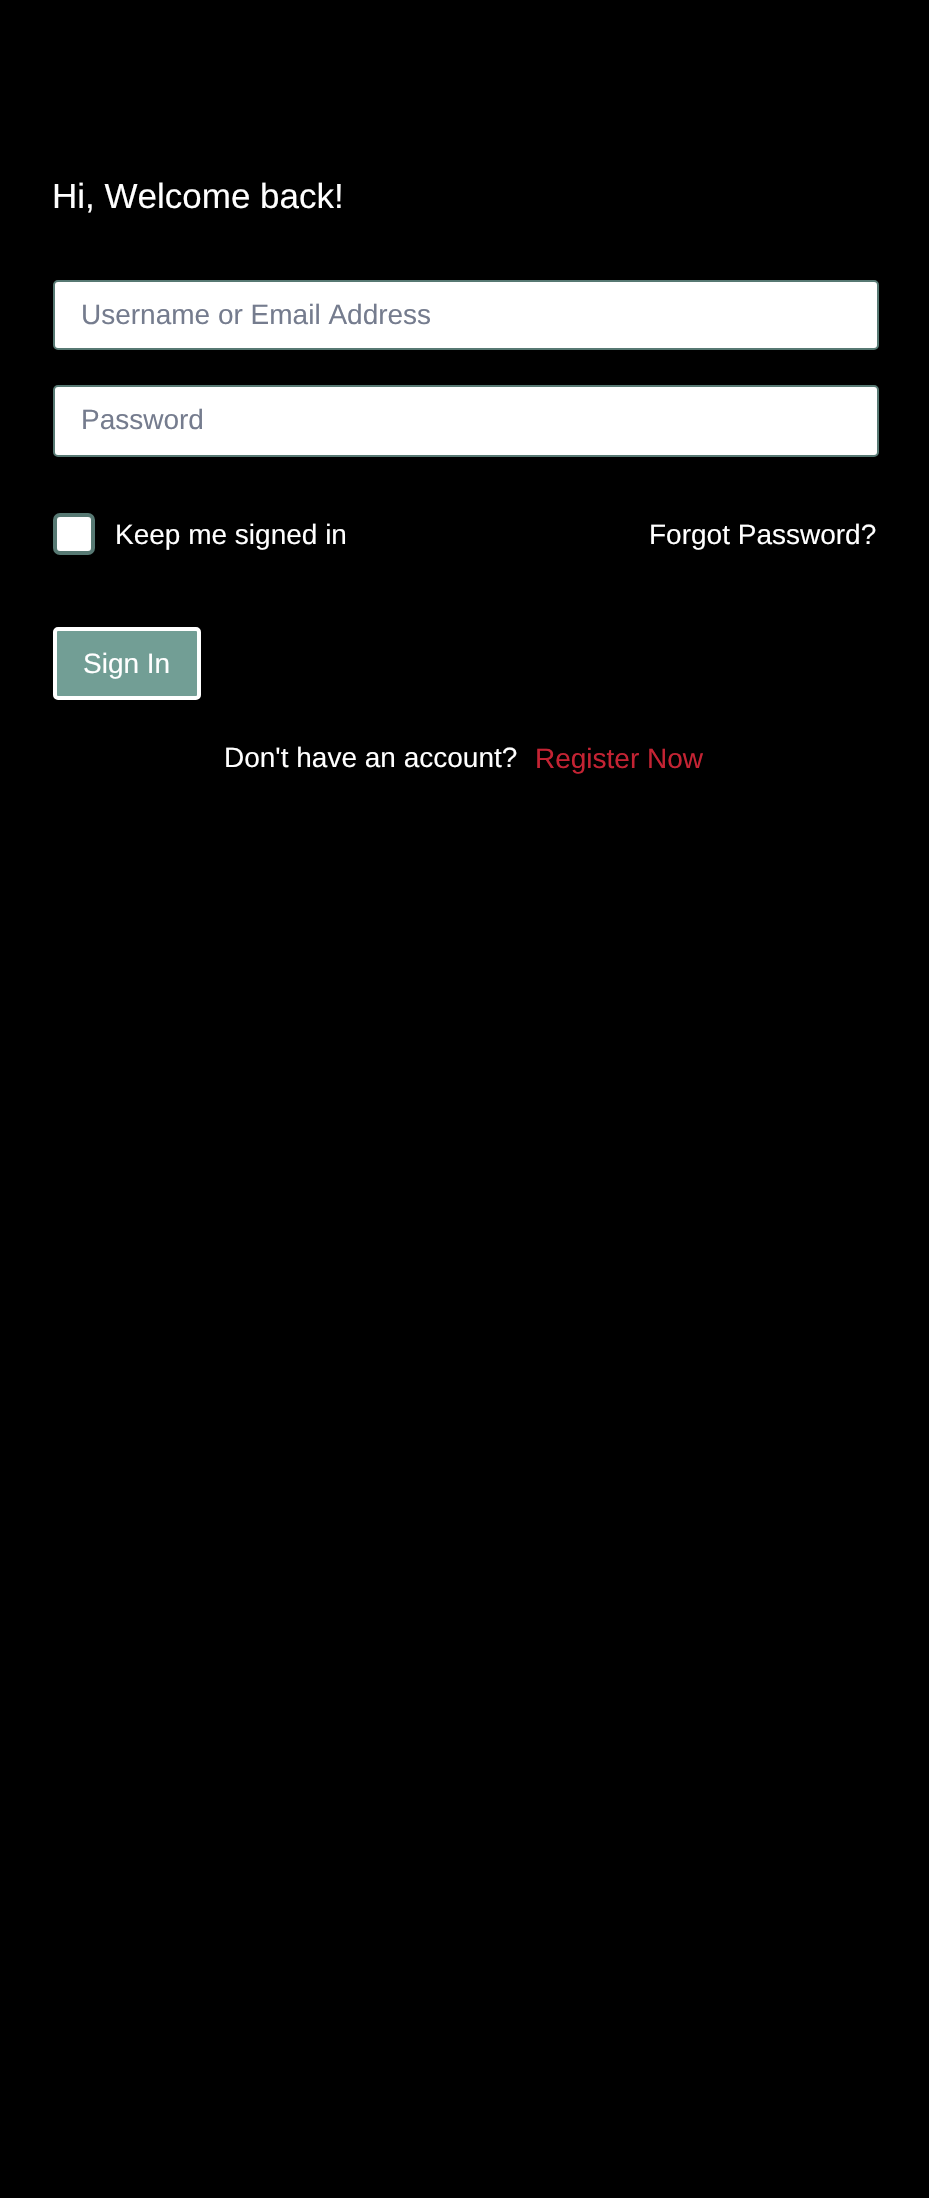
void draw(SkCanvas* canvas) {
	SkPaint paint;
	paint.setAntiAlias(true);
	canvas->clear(0xff000000);
	SkFont f1(fontMgr->matchFamilyStyle("Liberation Sans", SkFontStyle::Normal()), 35);
	f1.setSubpixel(true);
	paint.setColor(0xffffffff);
	canvas->drawString("Hi, Welcome back!", 52, 208, f1, paint);
	canvas->drawRoundRect(SkRect::MakeXYWH(54, 281, 824, 68), 4, 4, paint);
	paint.setStroke(true);
	paint.setStrokeWidth(2);
	paint.setColor(0xff577973);
	canvas->drawRoundRect(SkRect::MakeXYWH(54, 281, 824, 68), 4, 4, paint);
	SkFont f2(fontMgr->matchFamilyStyle("Liberation Sans", SkFontStyle::Normal()), 28);
	f2.setSubpixel(true);
	paint.setStroke(false);
	paint.setColor(0xff757c8e);
	canvas->drawString("Username or Email Address", 81, 324, f2, paint);
	paint.setColor(0xffffffff);
	canvas->drawRoundRect(SkRect::MakeXYWH(54, 386, 824, 70), 4, 4, paint);
	paint.setStroke(true);
	paint.setColor(0xff577973);
	canvas->drawRoundRect(SkRect::MakeXYWH(54, 386, 824, 70), 4, 4, paint);
	paint.setStroke(false);
	paint.setColor(0xff757c8e);
	canvas->drawString("Password", 81, 429, f2, paint);
	paint.setColor(0xffffffff);
	canvas->drawRoundRect(SkRect::MakeXYWH(55, 515, 38, 38), 5, 5, paint);
	paint.setStroke(true);
	paint.setStrokeWidth(4);
	paint.setColor(0xff577973);
	canvas->drawRoundRect(SkRect::MakeXYWH(55, 515, 38, 38), 5, 5, paint);
	paint.setStroke(false);
	paint.setColor(0xffffffff);
	canvas->drawString("Keep me signed in", 115, 544, f2, paint);
	canvas->drawString("Forgot Password?", 649, 544, f2, paint);
	paint.setColor(0xff729e95);
	canvas->drawRoundRect(SkRect::MakeXYWH(55, 629, 144, 69), 3, 3, paint);
	paint.setStroke(true);
	paint.setColor(0xffffffff);
	canvas->drawRoundRect(SkRect::MakeXYWH(55, 629, 144, 69), 3, 3, paint);
	paint.setStroke(false);
	canvas->drawString("Sign In", 83, 673, f2, paint);
	canvas->drawString("Don't have an account?", 224, 767, f2, paint);
	paint.setColor(0xffc42333);
	canvas->drawString("Register Now", 535, 768, f2, paint);
}
